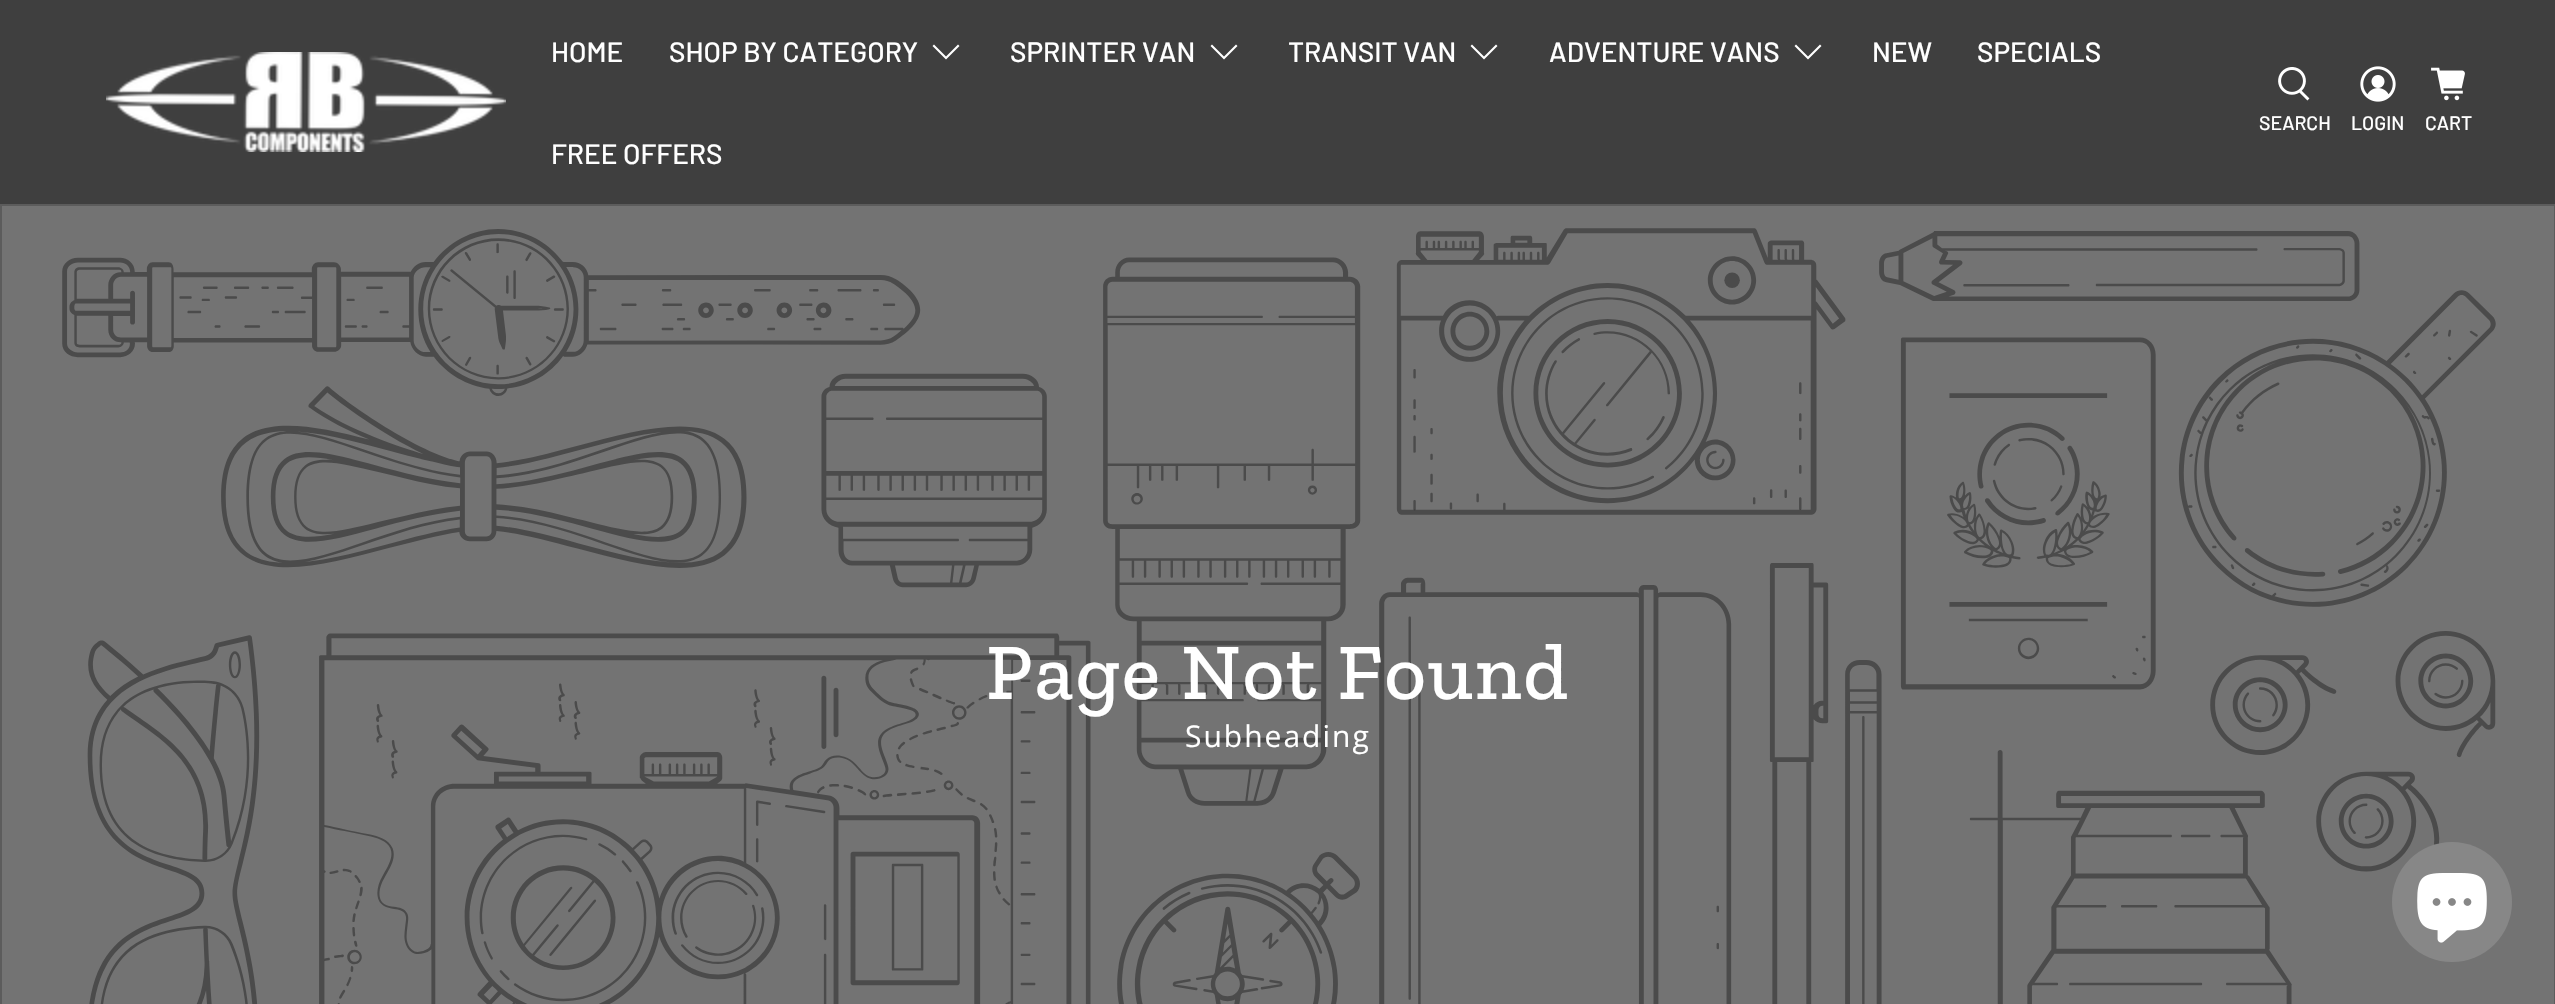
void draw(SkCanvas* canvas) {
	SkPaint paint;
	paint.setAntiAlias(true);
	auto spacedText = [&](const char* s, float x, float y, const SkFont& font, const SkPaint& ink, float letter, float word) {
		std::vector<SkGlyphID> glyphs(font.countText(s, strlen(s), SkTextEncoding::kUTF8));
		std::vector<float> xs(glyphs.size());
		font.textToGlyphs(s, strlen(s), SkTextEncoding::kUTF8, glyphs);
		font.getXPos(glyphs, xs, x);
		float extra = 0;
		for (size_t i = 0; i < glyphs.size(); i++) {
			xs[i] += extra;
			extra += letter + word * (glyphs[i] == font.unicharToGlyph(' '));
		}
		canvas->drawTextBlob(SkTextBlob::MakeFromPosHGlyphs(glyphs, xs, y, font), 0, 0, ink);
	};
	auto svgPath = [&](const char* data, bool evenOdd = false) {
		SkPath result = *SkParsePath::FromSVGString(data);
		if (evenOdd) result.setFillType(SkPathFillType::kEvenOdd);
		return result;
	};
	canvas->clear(0xff3f3f3f);
	canvas->drawImageRect(SkImages::DeferredFromEncodedData(SkData::MakeFromFileName("img1.png")), SkRect::MakeXYWH(106, 52, 400, 100), SkSamplingOptions());
	SkFont f1(fontMgr->matchFamilyStyle("Barlow", SkFontStyle(500, SkFontStyle::kNormal_Width, SkFontStyle::kUpright_Slant)), 28);
	f1.setSubpixel(true);
	paint.setColor(0xffffffff);
	canvas->drawString("HOME", 551, 62, f1, paint);
	canvas->drawString("SHOP BY CATEGORY", 669, 62, f1, paint);
	canvas->drawPath(svgPath("M946 59.5L932.5 46L934 44.5L946 56.5L958 44.5L959.5 46Z"), paint);
	canvas->drawString("SPRINTER VAN", 1010, 62, f1, paint);
	canvas->drawPath(svgPath("M1224 59.5L1210.5 46L1212 44.5L1224 56.5L1236 44.5L1237.5 46Z"), paint);
	canvas->drawString("TRANSIT VAN", 1288, 62, f1, paint);
	canvas->drawPath(svgPath("M1484 59.5L1470.5 46L1472 44.5L1484 56.5L1496 44.5L1497.5 46Z"), paint);
	canvas->drawString("ADVENTURE VANS", 1549, 62, f1, paint);
	canvas->drawPath(svgPath("M1808 59.5L1794.5 46L1796 44.5L1808 56.5L1820 44.5L1821.5 46Z"), paint);
	canvas->drawString("NEW", 1872, 62, f1, paint);
	canvas->drawString("SPECIALS", 1977, 62, f1, paint);
	canvas->drawString("FREE OFFERS", 551, 164, f1, paint);
	canvas->drawImageRect(SkImages::DeferredFromEncodedData(SkData::MakeFromFileName("img2.png")), SkRect::MakeXYWH(2278, 67, 32, 34), SkSamplingOptions());
	SkFont f2(fontMgr->matchFamilyStyle("Barlow", SkFontStyle(500, SkFontStyle::kNormal_Width, SkFontStyle::kUpright_Slant)), 19.5);
	f2.setSubpixel(true);
	canvas->drawString("SEARCH", 2259, 130, f2, paint);
	canvas->drawImageRect(SkImages::DeferredFromEncodedData(SkData::MakeFromFileName("img3.png")), SkRect::MakeXYWH(2360, 66, 36, 36), SkSamplingOptions());
	canvas->drawString("LOGIN", 2351, 130, f2, paint);
	canvas->drawImageRect(SkImages::DeferredFromEncodedData(SkData::MakeFromFileName("img4.png")), SkRect::MakeXYWH(2431, 67, 34, 34), SkSamplingOptions());
	canvas->drawString("CART", 2425, 130, f2, paint);
	paint.setColor(0xffe6e6e6);
	canvas->drawRect(SkRect::MakeXYWH(1, 205, 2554, 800), paint);
	paint.setStroke(true);
	paint.setStrokeWidth(2);
	paint.setColor(0xffb8b8b8);
	canvas->drawRect(SkRect::MakeXYWH(1, 205, 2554, 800), paint);
	canvas->drawImageRect(SkImages::DeferredFromEncodedData(SkData::MakeFromFileName("img5.png")), SkRect::MakeXYWH(62, 228, 2434, 776), SkSamplingOptions());
	paint.setStroke(false);
	paint.setColor(0x80000000);
	canvas->drawRect(SkRect::MakeXYWH(0, 204, 2555, 800), paint);
	SkFont f3(fontMgr->matchFamilyStyle("Zilla Slab", SkFontStyle(500, SkFontStyle::kNormal_Width, SkFontStyle::kUpright_Slant)), 80);
	f3.setSubpixel(true);
	paint.setColor(0xffffffff);
	spacedText("Page Not Found", 986, 699, f3, paint, 2, 0);
	SkFont f4(fontMgr->matchFamilyStyle("Open Sans", SkFontStyle::Normal()), 30);
	f4.setSubpixel(true);
	spacedText("Subheading", 1185, 747, f4, paint, 2, 0);
	paint.setColor(0xff878787);
	canvas->drawCircle(2452, 902, 60, paint);
	canvas->drawImageRect(SkImages::DeferredFromEncodedData(SkData::MakeFromFileName("img6.png")), SkRect::MakeXYWH(2417, 873, 70, 70), SkSamplingOptions());
}
